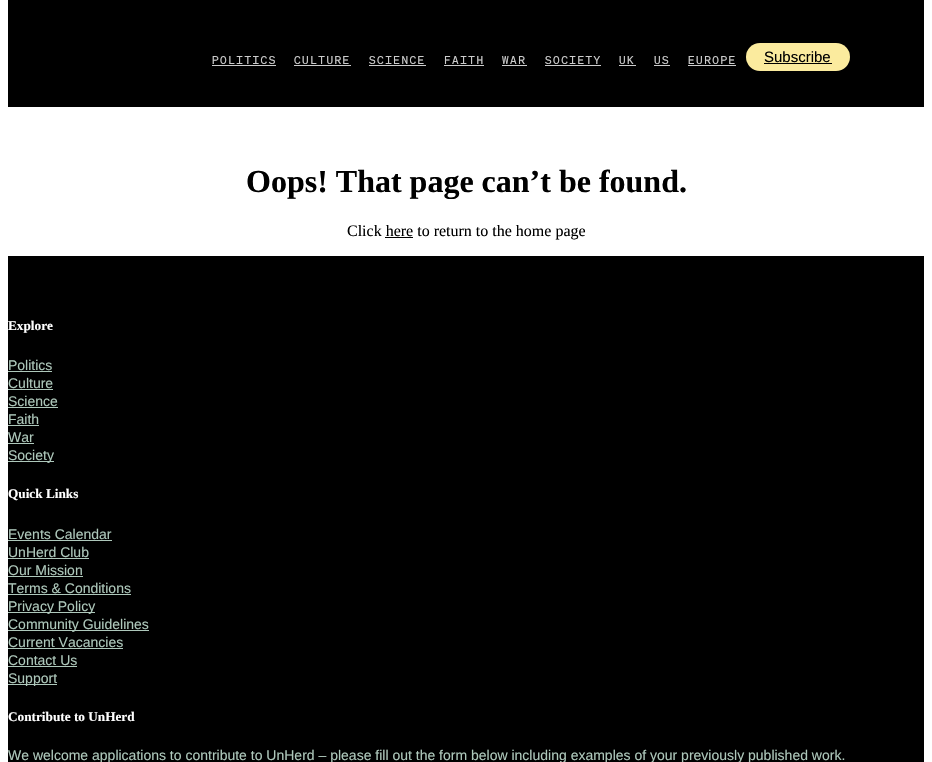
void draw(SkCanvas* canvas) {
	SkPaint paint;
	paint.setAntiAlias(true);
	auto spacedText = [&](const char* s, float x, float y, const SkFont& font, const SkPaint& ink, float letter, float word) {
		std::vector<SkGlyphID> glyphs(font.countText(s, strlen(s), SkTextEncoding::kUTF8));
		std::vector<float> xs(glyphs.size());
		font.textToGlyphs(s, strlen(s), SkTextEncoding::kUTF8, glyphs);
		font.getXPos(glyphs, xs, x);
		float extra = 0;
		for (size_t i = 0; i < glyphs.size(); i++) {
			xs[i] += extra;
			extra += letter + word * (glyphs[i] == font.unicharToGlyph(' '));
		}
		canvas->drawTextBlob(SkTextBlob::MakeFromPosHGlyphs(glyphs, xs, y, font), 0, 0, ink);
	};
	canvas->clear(0xffffffff);
	paint.setColor(0xff000000);
	canvas->drawRect(SkRect::MakeXYWH(8, 0, 916, 107), paint);
	SkFont f1(fontMgr->matchFamilyStyle("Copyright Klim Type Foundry", SkFontStyle::Normal()), 11);
	f1.setSubpixel(true);
	paint.setColor(0xffcccccc);
	spacedText("POLITICS", 212, 64, f1, paint, 1.5, 0);
	canvas->drawRect(SkRect::MakeXYWH(212, 65, 64, 1), paint);
	spacedText("CULTURE", 294, 64, f1, paint, 1.5, 0);
	canvas->drawRect(SkRect::MakeXYWH(294, 65, 57, 1), paint);
	spacedText("SCIENCE", 369, 64, f1, paint, 1.5, 0);
	canvas->drawRect(SkRect::MakeXYWH(369, 65, 57, 1), paint);
	spacedText("FAITH", 444, 64, f1, paint, 1.5, 0);
	canvas->drawRect(SkRect::MakeXYWH(444, 65, 40, 1), paint);
	spacedText("WAR", 502, 64, f1, paint, 1.5, 0);
	canvas->drawRect(SkRect::MakeXYWH(502, 65, 25, 1), paint);
	spacedText("SOCIETY", 545, 64, f1, paint, 1.5, 0);
	canvas->drawRect(SkRect::MakeXYWH(545, 65, 56, 1), paint);
	spacedText("UK", 619, 64, f1, paint, 1.5, 0);
	canvas->drawRect(SkRect::MakeXYWH(619, 65, 17, 1), paint);
	spacedText("US", 654, 64, f1, paint, 1.5, 0);
	canvas->drawRect(SkRect::MakeXYWH(654, 65, 16, 1), paint);
	spacedText("EUROPE", 688, 64, f1, paint, 1.5, 0);
	canvas->drawRect(SkRect::MakeXYWH(688, 65, 48, 1), paint);
	paint.setColor(0xfffbeb9e);
	canvas->drawRoundRect(SkRect::MakeXYWH(746, 43, 104, 28), 14, 14, paint);
	SkFont f2(fontMgr->matchFamilyStyle("Liberation Sans", SkFontStyle::Normal()), 15);
	f2.setSubpixel(true);
	paint.setColor(0xff000000);
	canvas->drawString("Subscribe", 764, 62, f2, paint);
	canvas->drawRect(SkRect::MakeXYWH(764, 63, 68, 1), paint);
	SkFont f3(fontMgr->matchFamilyStyle("Liberation Serif", SkFontStyle::Bold()), 32);
	f3.setSubpixel(true);
	canvas->drawString("Oops! That page can’t be found.", 246, 192, f3, paint);
	SkFont f4(fontMgr->matchFamilyStyle("Liberation Serif", SkFontStyle::Normal()), 16);
	f4.setSubpixel(true);
	canvas->drawString("Click here to return to the home page", 347, 236, f4, paint);
	canvas->drawRect(SkRect::MakeXYWH(385, 237, 28, 1), paint);
	canvas->drawRect(SkRect::MakeXYWH(8, 256, 916, 506), paint);
	SkFont f5(fontMgr->matchFamilyStyle("Liberation Serif", SkFontStyle::Bold()), 13.25);
	f5.setSubpixel(true);
	paint.setColor(0xffffffff);
	canvas->drawString("Explore", 8, 330, f5, paint);
	SkFont f6(fontMgr->matchFamilyStyle("Liberation Sans", SkFontStyle::Normal()), 14);
	f6.setSubpixel(true);
	paint.setColor(0xffaec8bb);
	canvas->drawString("Politics", 8, 370, f6, paint);
	canvas->drawRect(SkRect::MakeXYWH(8, 371, 44, 1), paint);
	canvas->drawString("Culture", 8, 388, f6, paint);
	canvas->drawRect(SkRect::MakeXYWH(8, 389, 45, 1), paint);
	canvas->drawString("Science", 8, 406, f6, paint);
	canvas->drawRect(SkRect::MakeXYWH(8, 407, 50, 1), paint);
	canvas->drawString("Faith", 8, 424, f6, paint);
	canvas->drawRect(SkRect::MakeXYWH(8, 425, 31, 1), paint);
	canvas->drawString("War", 8, 442, f6, paint);
	canvas->drawRect(SkRect::MakeXYWH(8, 443, 26, 1), paint);
	canvas->drawRect(SkRect::MakeXYWH(8, 461, 46, 1), paint);
	canvas->drawString("Society", 8, 460, f6, paint);
	paint.setColor(0xffffffff);
	canvas->drawString("Quick Links", 8, 498, f5, paint);
	paint.setColor(0xffaec8bb);
	canvas->drawString("Events Calendar", 8, 539, f6, paint);
	canvas->drawRect(SkRect::MakeXYWH(8, 540, 104, 1), paint);
	canvas->drawString("UnHerd Club", 8, 557, f6, paint);
	canvas->drawRect(SkRect::MakeXYWH(8, 558, 81, 1), paint);
	canvas->drawString("Our Mission", 8, 575, f6, paint);
	canvas->drawRect(SkRect::MakeXYWH(8, 576, 75, 1), paint);
	canvas->drawString("Terms & Conditions", 8, 593, f6, paint);
	canvas->drawRect(SkRect::MakeXYWH(8, 594, 123, 1), paint);
	canvas->drawRect(SkRect::MakeXYWH(8, 612, 87, 1), paint);
	canvas->drawString("Privacy Policy", 8, 611, f6, paint);
	canvas->drawRect(SkRect::MakeXYWH(8, 630, 141, 1), paint);
	canvas->drawString("Community Guidelines", 8, 629, f6, paint);
	canvas->drawString("Current Vacancies", 8, 647, f6, paint);
	canvas->drawRect(SkRect::MakeXYWH(8, 648, 115, 1), paint);
	canvas->drawString("Contact Us", 8, 665, f6, paint);
	canvas->drawRect(SkRect::MakeXYWH(8, 666, 69, 1), paint);
	canvas->drawRect(SkRect::MakeXYWH(8, 684, 49, 1), paint);
	canvas->drawString("Support", 8, 683, f6, paint);
	paint.setColor(0xffffffff);
	canvas->drawString("Contribute to UnHerd", 8, 721, f5, paint);
	paint.setColor(0xffaec8bb);
	canvas->drawString("We welcome applications to contribute to UnHerd – please fill out the form below including examples of your previously published work.", 8, 760, f6, paint);
}
